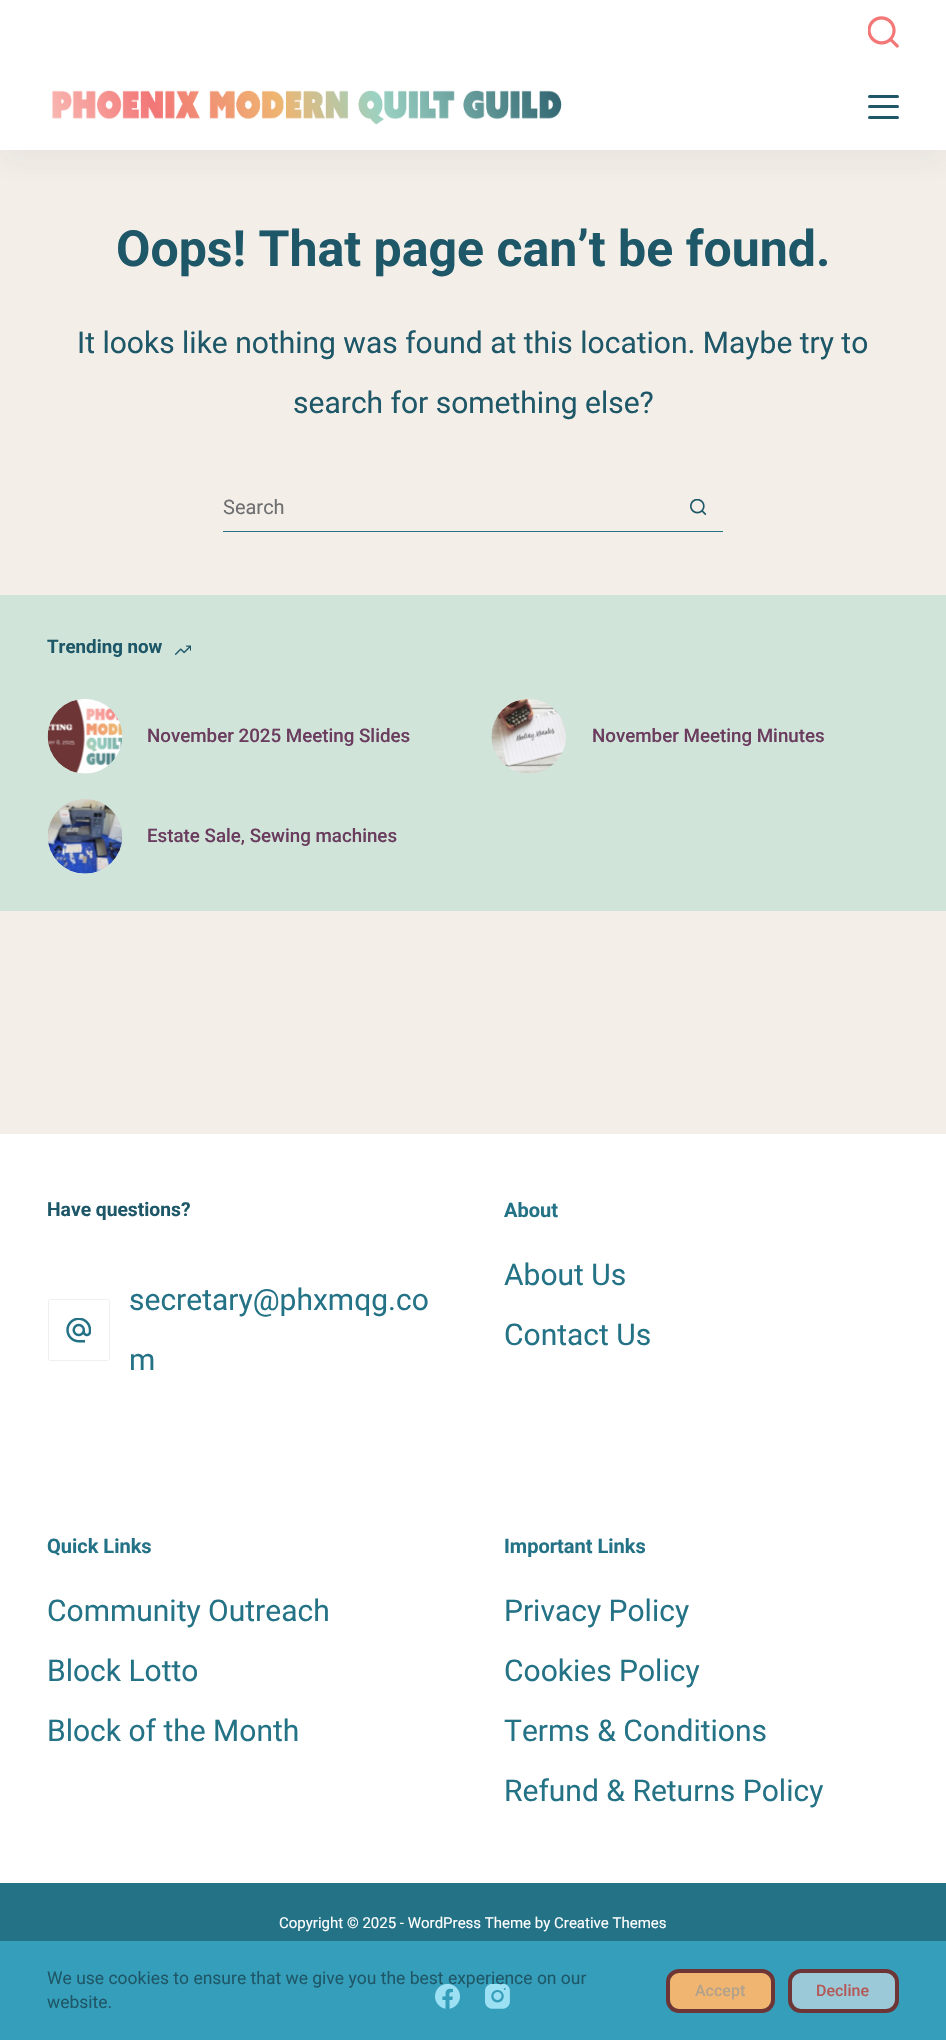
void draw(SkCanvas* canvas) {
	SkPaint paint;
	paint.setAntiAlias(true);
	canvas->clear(0xfff4eee8);
	paint.setColor(0x0f2b3d50);
	paint.setMaskFilter(SkMaskFilter::MakeBlur(kNormal_SkBlurStyle, 12.5));
	canvas->drawRect(SkRect::MakeXYWH(0, 75, 946, 88), paint);
	paint.setMaskFilter(nullptr);
	paint.setColor(0xffffffff);
	canvas->drawRect(SkRect::MakeXYWH(0, 0, 946, 150), paint);
	canvas->drawImageRect(SkImages::DeferredFromEncodedData(SkData::MakeFromFileName("img1.png")), SkRect::MakeXYWH(52, 90, 510, 35), SkSamplingOptions());
	paint.setColor(0xff1e5868);
	canvas->drawRoundRect(SkRect::MakeXYWH(868, 95, 31, 3), 1.5, 1.5, paint);
	canvas->drawRoundRect(SkRect::MakeXYWH(868, 105, 31, 3), 1.5, 1.5, paint);
	canvas->drawRoundRect(SkRect::MakeXYWH(868, 116, 31, 3), 1.5, 1.5, paint);
	canvas->drawImageRect(SkImages::DeferredFromEncodedData(SkData::MakeFromFileName("img2.png")), SkRect::MakeXYWH(868, 16, 31, 32), SkSamplingOptions());
	SkFont f1(fontMgr->matchFamilyStyle("Roboto", SkFontStyle::Bold()), 50);
	f1.setSubpixel(true);
	canvas->drawString("Oops! That page can’t be found.", 116, 266, f1, paint);
	SkFont f2(fontMgr->matchFamilyStyle("Roboto", SkFontStyle::Normal()), 30);
	f2.setSubpixel(true);
	canvas->drawString("It looks like nothing was found at this location. Maybe try to", 77, 353, f2, paint);
	canvas->drawString("search for something else?", 293, 413, f2, paint);
	paint.setColor(0xff247286);
	canvas->drawRect(SkRect::MakeXYWH(223, 531, 500, 1), paint);
	SkFont f3(fontMgr->matchFamilyStyle("Roboto", SkFontStyle::Normal()), 20);
	f3.setSubpixel(true);
	paint.setColor(0xff6e6f71);
	canvas->drawString("Search", 223, 514, f3, paint);
	canvas->drawImageRect(SkImages::DeferredFromEncodedData(SkData::MakeFromFileName("img3.png")), SkRect::MakeXYWH(690, 499, 16, 16), SkSamplingOptions());
	paint.setColor(0xffd1e4da);
	canvas->drawRect(SkRect::MakeXYWH(0, 595, 946, 316), paint);
	SkFont f4(fontMgr->matchFamilyStyle("Roboto", SkFontStyle::Bold()), 18.75);
	f4.setSubpixel(true);
	paint.setColor(0xff1e5868);
	canvas->drawString("Trending now", 47, 653, f4, paint);
	canvas->drawImageRect(SkImages::DeferredFromEncodedData(SkData::MakeFromFileName("img4.png")), SkRect::MakeXYWH(175, 645, 16, 10), SkSamplingOptions());
	canvas->drawImageRect(SkImages::DeferredFromEncodedData(SkData::MakeFromFileName("img5.png")), SkRect::MakeXYWH(47, 699, 76, 75), SkSamplingOptions());
	SkFont f5(fontMgr->matchFamilyStyle("Roboto", SkFontStyle(500, SkFontStyle::kNormal_Width, SkFontStyle::kUpright_Slant)), 18.75);
	f5.setSubpixel(true);
	paint.setColor(0xff6a3c5e);
	canvas->drawString("November 2025 Meeting Slides", 147, 742, f5, paint);
	canvas->drawImageRect(SkImages::DeferredFromEncodedData(SkData::MakeFromFileName("img6.png")), SkRect::MakeXYWH(491, 699, 75, 75), SkSamplingOptions());
	canvas->drawString("November Meeting Minutes", 592, 742, f5, paint);
	canvas->drawImageRect(SkImages::DeferredFromEncodedData(SkData::MakeFromFileName("img7.png")), SkRect::MakeXYWH(48, 799, 75, 75), SkSamplingOptions());
	canvas->drawString("Estate Sale, Sewing machines", 147, 842, f5, paint);
	paint.setColor(0xffffffff);
	canvas->drawRect(SkRect::MakeXYWH(0, 1134, 946, 749), paint);
	SkFont f6(fontMgr->matchFamilyStyle("Roboto", SkFontStyle::Bold()), 19.25);
	f6.setSubpixel(true);
	paint.setColor(0xff1e5868);
	canvas->drawString("Have questions?", 47, 1216, f6, paint);
	paint.setStroke(true);
	paint.setStrokeWidth(1);
	paint.setColor(0xffedeff2);
	canvas->drawRoundRect(SkRect::MakeXYWH(48.5, 1299.5, 61, 61), 2, 2, paint);
	canvas->drawImageRect(SkImages::DeferredFromEncodedData(SkData::MakeFromFileName("img8.png")), SkRect::MakeXYWH(66, 1318, 25, 25), SkSamplingOptions());
	paint.setStroke(false);
	paint.setColor(0xff247286);
	canvas->drawString("secretary@phxmqg.co", 129, 1310, f2, paint);
	canvas->drawString("m", 129, 1370, f2, paint);
	SkFont f7(fontMgr->matchFamilyStyle("Roboto", SkFontStyle::Bold()), 20);
	f7.setSubpixel(true);
	canvas->drawString("About", 504, 1217, f7, paint);
	canvas->drawString("About Us", 504, 1285, f2, paint);
	canvas->drawString("Contact Us", 504, 1345, f2, paint);
	canvas->drawString("Quick Links", 47, 1553, f7, paint);
	canvas->drawString("Community Outreach", 47, 1621, f2, paint);
	canvas->drawString("Block Lotto", 47, 1681, f2, paint);
	canvas->drawString("Block of the Month", 47, 1741, f2, paint);
	canvas->drawString("Important Links", 504, 1553, f7, paint);
	canvas->drawString("Privacy Policy", 504, 1621, f2, paint);
	canvas->drawString("Cookies Policy", 504, 1681, f2, paint);
	canvas->drawString("Terms & Conditions", 504, 1741, f2, paint);
	canvas->drawString("Refund & Returns Policy", 504, 1801, f2, paint);
	canvas->drawRect(SkRect::MakeXYWH(0, 1883, 946, 58), paint);
	paint.setColor(0xff359eba);
	canvas->drawRect(SkRect::MakeXYWH(0, 1941, 946, 99), paint);
	SkFont f8(fontMgr->matchFamilyStyle("Roboto", SkFontStyle::Normal()), 15);
	f8.setSubpixel(true);
	paint.setColor(0xffffffff);
	canvas->drawString("Copyright © 2025 - WordPress Theme by Creative Themes", 279, 1928, f8, paint);
	canvas->drawImageRect(SkImages::DeferredFromEncodedData(SkData::MakeFromFileName("img9.png")), SkRect::MakeXYWH(435, 1984, 25, 25), SkSamplingOptions());
	canvas->drawImageRect(SkImages::DeferredFromEncodedData(SkData::MakeFromFileName("img10.png")), SkRect::MakeXYWH(485, 1984, 25, 25), SkSamplingOptions());
	SkFont f9(fontMgr->matchFamilyStyle("Roboto", SkFontStyle::Normal()), 17.5);
	f9.setSubpixel(true);
	paint.setColor(0xff1e5868);
	canvas->drawString("We use cookies to ensure that we give you the best experience on our", 47, 1984, f9, paint);
	canvas->drawString("website.", 47, 2008, f9, paint);
	paint.setColor(0xfff0b671);
	canvas->drawRoundRect(SkRect::MakeXYWH(668, 1971, 105, 40), 11, 11, paint);
	paint.setStroke(true);
	paint.setStrokeWidth(4);
	paint.setColor(0xff6d3535);
	canvas->drawRoundRect(SkRect::MakeXYWH(668, 1971, 105, 40), 11, 11, paint);
	SkFont f10(fontMgr->matchFamilyStyle("Roboto", SkFontStyle(500, SkFontStyle::kNormal_Width, SkFontStyle::kUpright_Slant)), 16);
	f10.setSubpixel(true);
	paint.setStroke(false);
	paint.setColor(0xffb3a18b);
	canvas->drawString("Accept", 695, 1996, f10, paint);
	paint.setColor(0xff9cc9d8);
	canvas->drawRoundRect(SkRect::MakeXYWH(790, 1971, 107, 40), 11, 11, paint);
	paint.setStroke(true);
	paint.setColor(0xff6d3535);
	canvas->drawRoundRect(SkRect::MakeXYWH(790, 1971, 107, 40), 11, 11, paint);
	paint.setStroke(false);
	paint.setColor(0xffb35958);
	canvas->drawString("Decline", 816, 1996, f10, paint);
}
